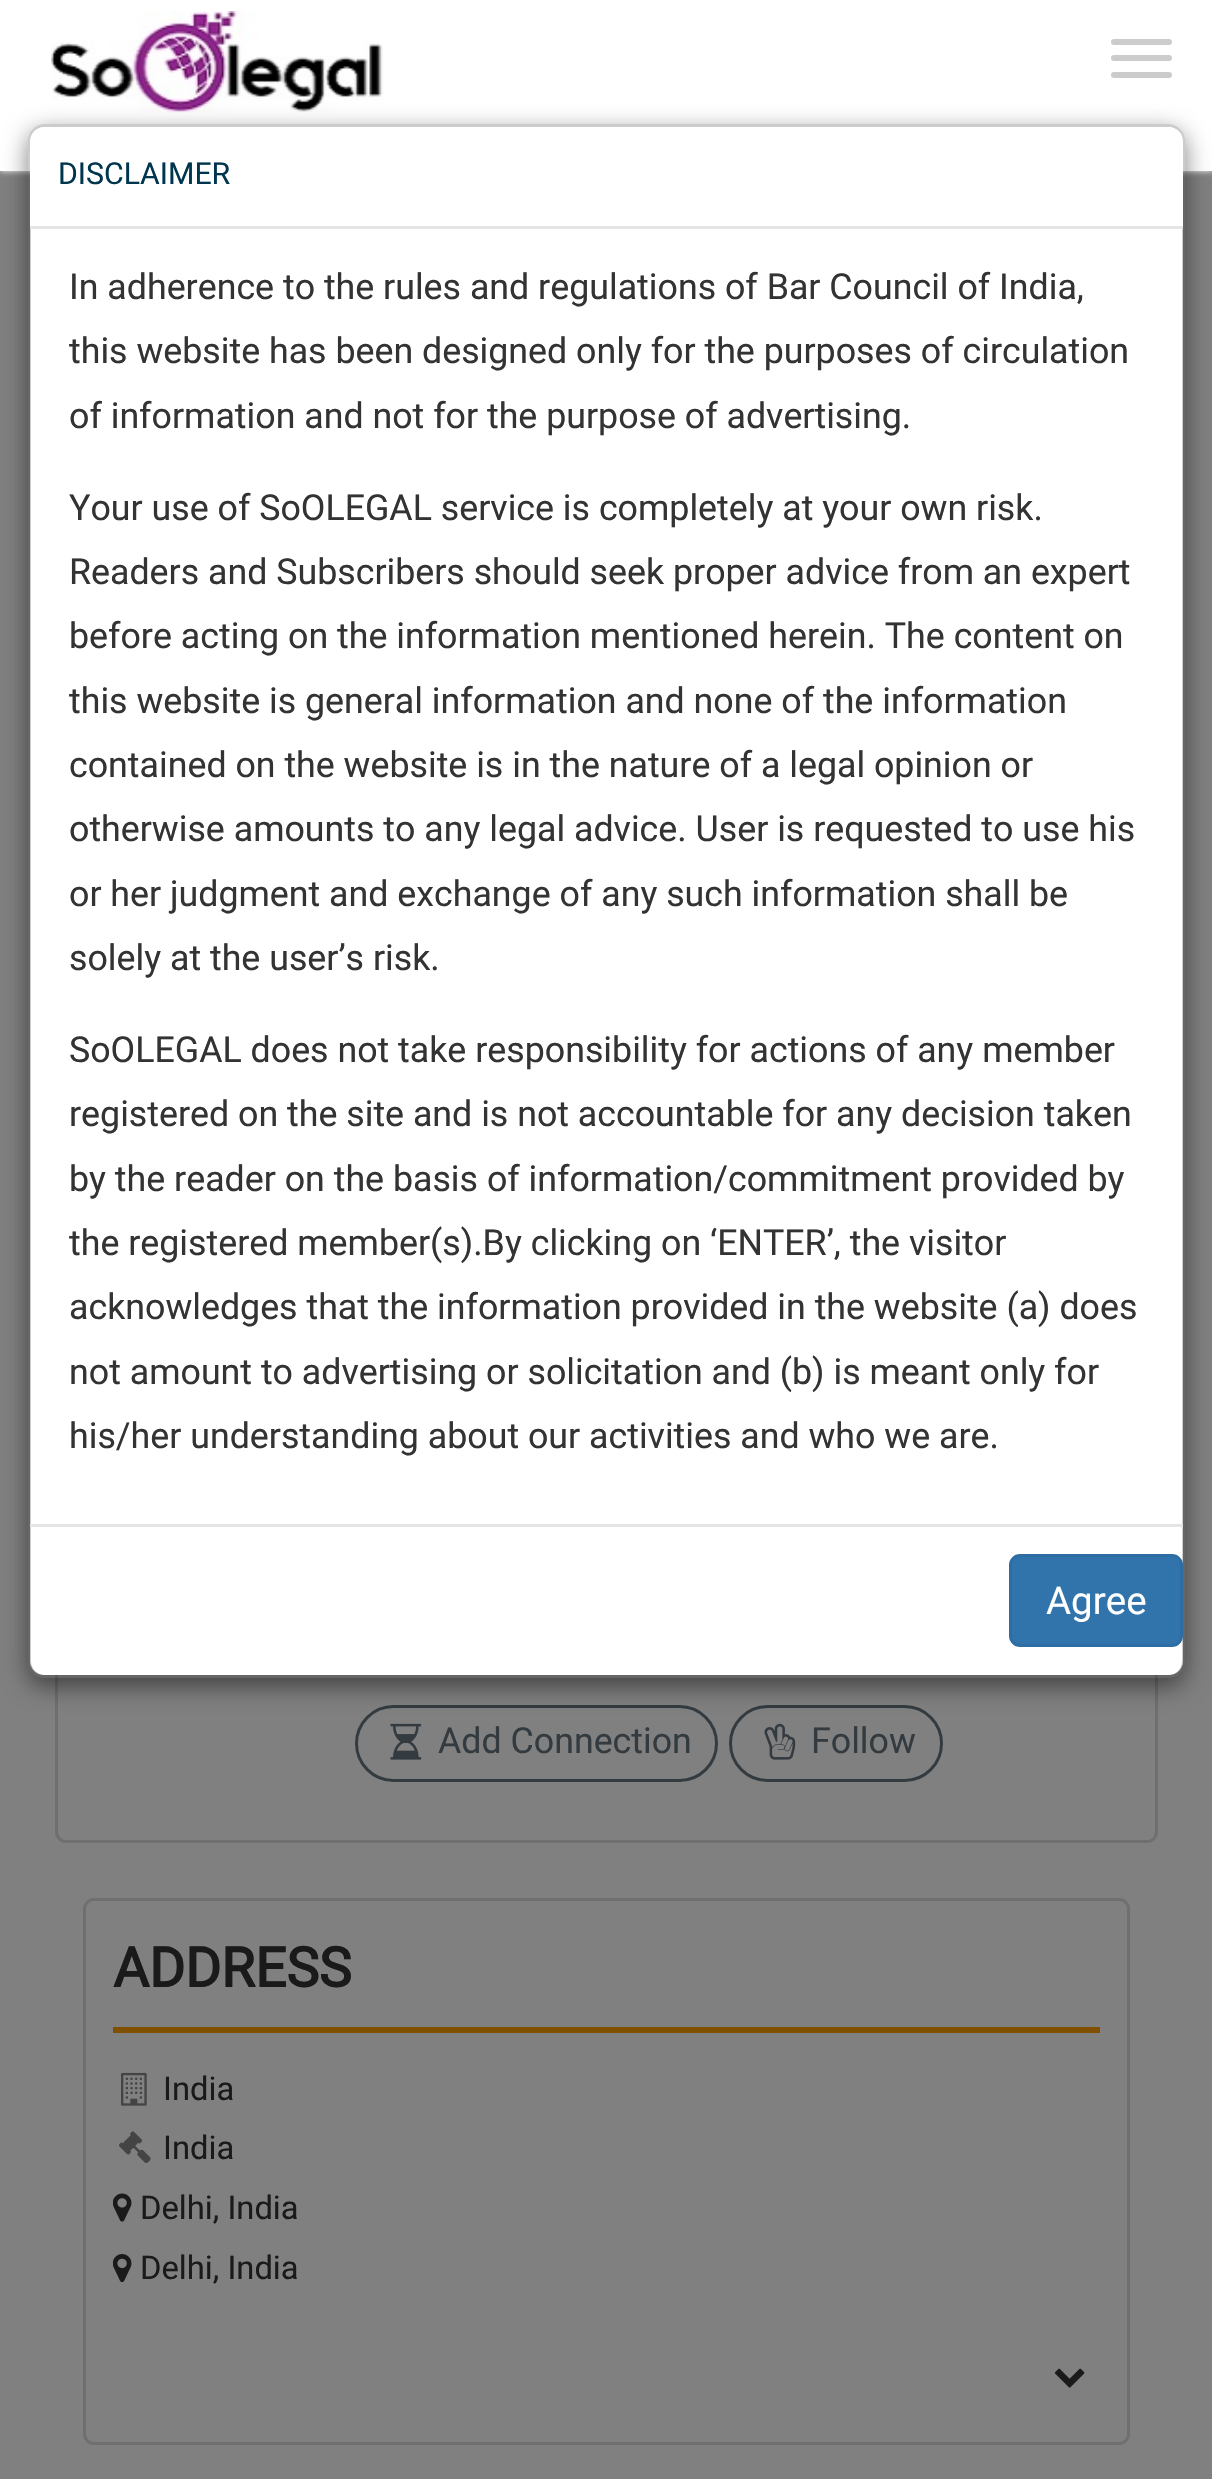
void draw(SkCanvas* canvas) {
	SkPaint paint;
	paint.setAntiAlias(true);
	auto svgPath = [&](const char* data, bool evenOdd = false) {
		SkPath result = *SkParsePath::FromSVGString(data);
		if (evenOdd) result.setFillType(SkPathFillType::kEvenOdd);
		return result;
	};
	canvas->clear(0xff808080);
	paint.setColor(0xffffffff);
	paint.setMaskFilter(SkMaskFilter::MakeBlur(kNormal_SkBlurStyle, 3));
	canvas->drawRect(SkRect::MakeXYWH(0, 0, 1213, 171), paint);
	paint.setMaskFilter(nullptr);
	canvas->drawRect(SkRect::MakeXYWH(0, 0, 1212, 171), paint);
	canvas->drawImageRect(SkImages::DeferredFromEncodedData(SkData::MakeFromFileName("img1.png")), SkRect::MakeXYWH(51, 11, 332, 102), SkSamplingOptions());
	paint.setColor(0xffcccccc);
	canvas->drawRoundRect(SkRect::MakeXYWH(1111, 39, 61, 6), 3, 3, paint);
	canvas->drawRoundRect(SkRect::MakeXYWH(1111, 55, 61, 6), 3, 3, paint);
	canvas->drawRoundRect(SkRect::MakeXYWH(1111, 72, 61, 6), 3, 3, paint);
	paint.setStroke(true);
	paint.setStrokeWidth(3);
	paint.setColor(0xff6f6f6f);
	canvas->drawRoundRect(SkRect::MakeXYWH(56.5, 194.5, 1100, 1647), 9.5, 9.5, paint);
	paint.setColor(0xff333b40);
	canvas->drawRoundRect(SkRect::MakeXYWH(356.5, 1706.5, 360, 74), 37, 37, paint);
	canvas->drawImageRect(SkImages::DeferredFromEncodedData(SkData::MakeFromFileName("img2.png")), SkRect::MakeXYWH(390, 1723, 32, 37), SkSamplingOptions());
	canvas->drawRoundRect(SkRect::MakeXYWH(730.5, 1706.5, 211, 74), 37, 37, paint);
	canvas->drawImageRect(SkImages::DeferredFromEncodedData(SkData::MakeFromFileName("img3.png")), SkRect::MakeXYWH(764, 1723, 32, 37), SkSamplingOptions());
	canvas->save();
	canvas->clipPath(svgPath("M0 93H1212V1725H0ZM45 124H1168C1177.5 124 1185 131.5 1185 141V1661C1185 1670.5 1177.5 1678 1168 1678H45C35.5 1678 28 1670.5 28 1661V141C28 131.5 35.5 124 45 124Z", true), true);
	paint.setStroke(false);
	paint.setColor(0x80000000);
	paint.setMaskFilter(SkMaskFilter::MakeBlur(kNormal_SkBlurStyle, 12.5));
	canvas->drawRoundRect(SkRect::MakeXYWH(28, 132, 1157, 1554), 17, 17, paint);
	paint.setMaskFilter(nullptr);
	canvas->restore();
	paint.setColor(0xffffffff);
	canvas->drawRoundRect(SkRect::MakeXYWH(30, 127, 1153, 1548), 14, 14, paint);
	paint.setStroke(true);
	paint.setColor(0x33000000);
	canvas->drawRoundRect(SkRect::MakeXYWH(29.5, 125.5, 1154, 1551), 15.5, 15.5, paint);
	paint.setStroke(false);
	paint.setColor(0xffffffff);
	canvas->drawPath(svgPath("M44 127H1169C1176.5 127 1183 133.5 1183 141V228H30V141C30 133.5 36.5 127 44 127Z"), paint);
	paint.setColor(0xffe5e5e5);
	canvas->drawRect(SkRect::MakeXYWH(30, 226, 1153, 3), paint);
	SkFont f1(fontMgr->matchFamilyStyle("Roboto", SkFontStyle::Normal()), 30.25);
	f1.setSubpixel(true);
	paint.setColor(0xff00354e);
	canvas->drawString("DISCLAIMER", 58, 184, f1, paint);
	SkFont f2(fontMgr->matchFamilyStyle("Roboto", SkFontStyle::Normal()), 35.75);
	f2.setSubpixel(true);
	paint.setColor(0xff333333);
	canvas->drawString("In adherence to the rules and regulations of Bar Council of India,", 69, 299, f2, paint);
	canvas->drawString("this website has been designed only for the purposes of circulation", 69, 363, f2, paint);
	canvas->drawString("of information and not for the purpose of advertising.", 69, 428, f2, paint);
	canvas->drawString("Your use of SoOLEGAL service is completely at your own risk.", 69, 520, f2, paint);
	canvas->drawString("Readers and Subscribers should seek proper advice from an expert", 69, 584, f2, paint);
	canvas->drawString("before acting on the information mentioned herein. The content on", 69, 648, f2, paint);
	canvas->drawString("this website is general information and none of the information", 69, 713, f2, paint);
	canvas->drawString("contained on the website is in the nature of a legal opinion or", 69, 777, f2, paint);
	canvas->drawString("otherwise amounts to any legal advice. User is requested to use his", 69, 841, f2, paint);
	canvas->drawString("or her judgment and exchange of any such information shall be", 69, 906, f2, paint);
	canvas->drawString("solely at the user’s risk.", 69, 970, f2, paint);
	canvas->drawString("SoOLEGAL does not take responsibility for actions of any member", 69, 1062, f2, paint);
	canvas->drawString("registered on the site and is not accountable for any decision taken", 69, 1126, f2, paint);
	canvas->drawString("by the reader on the basis of information/commitment provided by", 69, 1191, f2, paint);
	canvas->drawString("the registered member(s).By clicking on ‘ENTER’, the visitor", 69, 1255, f2, paint);
	canvas->drawString("acknowledges that the information provided in the website (a) does", 69, 1319, f2, paint);
	canvas->drawString("not amount to advertising or solicitation and (b) is meant only for", 69, 1384, f2, paint);
	canvas->drawString("his/her understanding about our activities and who we are.", 69, 1448, f2, paint);
	paint.setColor(0xffe5e5e5);
	canvas->drawRect(SkRect::MakeXYWH(30, 1524, 1153, 3), paint);
	paint.setColor(0xff3074ab);
	canvas->drawRoundRect(SkRect::MakeXYWH(1010.5, 1555.5, 171, 90), 9.5, 9.5, paint);
	paint.setStroke(true);
	paint.setColor(0xff2e6da4);
	canvas->drawRoundRect(SkRect::MakeXYWH(1010.5, 1555.5, 171, 90), 9.5, 9.5, paint);
	SkFont f3(fontMgr->matchFamilyStyle("Roboto", SkFontStyle::Normal()), 38.5);
	f3.setSubpixel(true);
	paint.setStroke(false);
	paint.setColor(0xffffffff);
	canvas->drawString("Agree", 1046, 1614, f3, paint);
	paint.setColor(0xff333b40);
	canvas->drawString("Add Connection", 438, 1753, f2, paint);
	canvas->drawString("Follow", 811, 1753, f2, paint);
	paint.setStroke(true);
	paint.setColor(0xff6f6f6f);
	canvas->drawRoundRect(SkRect::MakeXYWH(84.5, 1899.5, 1044, 544), 9.5, 9.5, paint);
	paint.setStroke(false);
	paint.setColor(0xff805000);
	canvas->drawRect(SkRect::MakeXYWH(113, 2027, 987, 6), paint);
	SkFont f4(fontMgr->matchFamilyStyle("Roboto", SkFontStyle::Bold()), 55);
	f4.setSubpixel(true);
	paint.setColor(0xff1a1a1a);
	canvas->drawString("ADDRESS", 113, 1987, f4, paint);
	canvas->drawImageRect(SkImages::DeferredFromEncodedData(SkData::MakeFromFileName("img4.png")), SkRect::MakeXYWH(121, 2072, 26, 34), SkSamplingOptions());
	SkFont f5(fontMgr->matchFamilyStyle("Roboto", SkFontStyle::Normal()), 32.75);
	f5.setSubpixel(true);
	canvas->drawString("India", 163, 2100, f5, paint);
	canvas->drawImageRect(SkImages::DeferredFromEncodedData(SkData::MakeFromFileName("img5.png")), SkRect::MakeXYWH(119, 2131, 32, 32), SkSamplingOptions());
	canvas->drawString("India", 163, 2159, f5, paint);
	canvas->drawImageRect(SkImages::DeferredFromEncodedData(SkData::MakeFromFileName("img6.png")), SkRect::MakeXYWH(113, 2193, 19, 29), SkSamplingOptions());
	canvas->drawString("Delhi, India", 140, 2219, f5, paint);
	canvas->drawImageRect(SkImages::DeferredFromEncodedData(SkData::MakeFromFileName("img7.png")), SkRect::MakeXYWH(113, 2254, 19, 29), SkSamplingOptions());
	canvas->drawString("Delhi, India", 140, 2279, f5, paint);
	canvas->drawImageRect(SkImages::DeferredFromEncodedData(SkData::MakeFromFileName("img8.png")), SkRect::MakeXYWH(1054, 2368, 31, 20), SkSamplingOptions());
}
